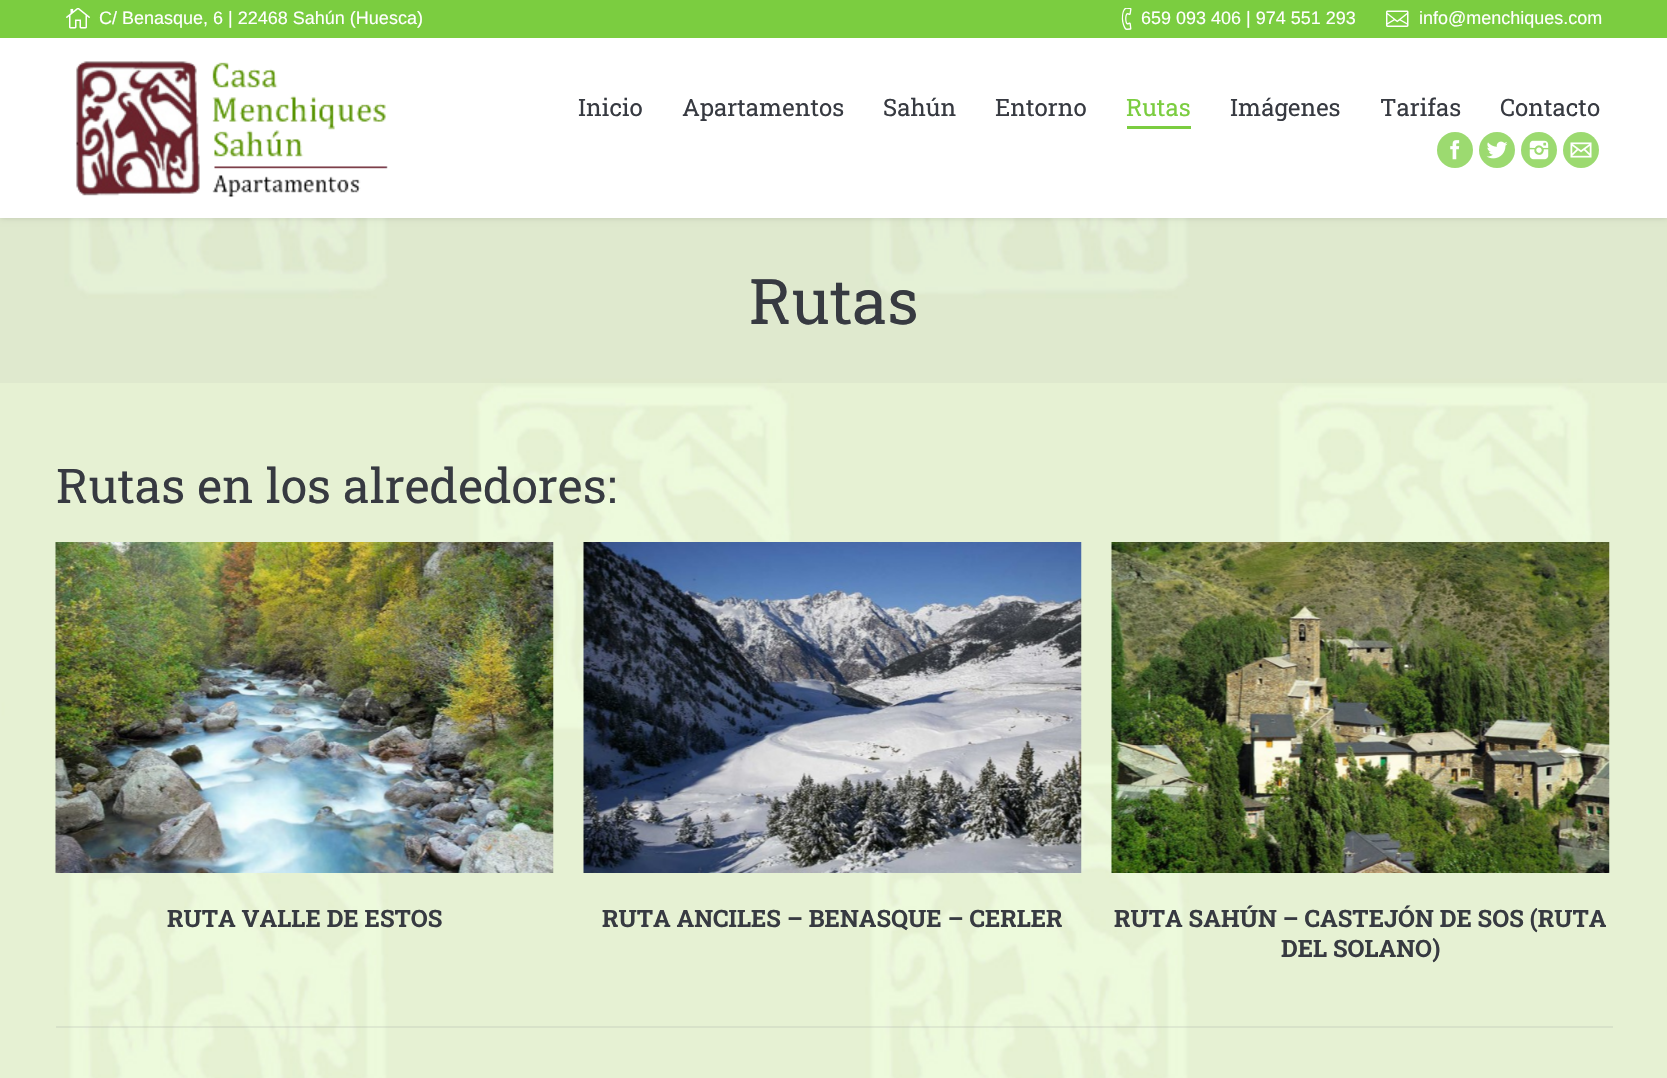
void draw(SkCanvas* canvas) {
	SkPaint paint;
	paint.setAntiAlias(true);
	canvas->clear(0xffffffff);
	canvas->drawImageRect(SkImages::DeferredFromEncodedData(SkData::MakeFromFileName("img1.png")), SkRect::MakeXYWH(0, 218, 1667, 860), SkSamplingOptions());
	paint.setColor(0x148d9095);
	canvas->drawRect(SkRect::MakeXYWH(0, 218, 1667, 165), paint);
	paint.setColor(0x26000000);
	paint.setMaskFilter(SkMaskFilter::MakeBlur(kNormal_SkBlurStyle, 3));
	canvas->drawRect(SkRect::MakeXYWH(0, 0, 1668, 218), paint);
	paint.setMaskFilter(nullptr);
	paint.setColor(0xffffffff);
	canvas->drawRect(SkRect::MakeXYWH(0, 38, 1667, 180), paint);
	paint.setColor(0xff7bcd40);
	canvas->drawRect(SkRect::MakeXYWH(0, 0, 1667, 38), paint);
	canvas->drawImageRect(SkImages::DeferredFromEncodedData(SkData::MakeFromFileName("img2.png")), SkRect::MakeXYWH(66, 8, 24, 21), SkSamplingOptions());
	SkFont f1(fontMgr->matchFamilyStyle("Liberation Sans", SkFontStyle::Normal()), 18);
	f1.setSubpixel(true);
	paint.setColor(0xffffffff);
	canvas->drawString("C/ Benasque, 6 | 22468 Sahún (Huesca)", 99, 24, f1, paint);
	canvas->drawImageRect(SkImages::DeferredFromEncodedData(SkData::MakeFromFileName("img3.png")), SkRect::MakeXYWH(1121, 8, 11, 22), SkSamplingOptions());
	canvas->drawString("659 093 406 | 974 551 293", 1141, 24, f1, paint);
	canvas->drawImageRect(SkImages::DeferredFromEncodedData(SkData::MakeFromFileName("img4.png")), SkRect::MakeXYWH(1386, 10, 23, 17), SkSamplingOptions());
	canvas->drawString("info@menchiques.com", 1419, 24, f1, paint);
	canvas->drawImageRect(SkImages::DeferredFromEncodedData(SkData::MakeFromFileName("img5.png")), SkRect::MakeXYWH(76, 61, 312, 136), SkSamplingOptions());
	SkFont f2(fontMgr->matchFamilyStyle("Roboto Slab", SkFontStyle::Normal()), 24);
	f2.setSubpixel(true);
	paint.setColor(0xff373a41);
	canvas->drawString("Inicio", 578, 116, f2, paint);
	canvas->drawString("Apartamentos", 682, 116, f2, paint);
	canvas->drawString("Sahún", 883, 116, f2, paint);
	canvas->drawString("Entorno", 995, 116, f2, paint);
	paint.setColor(0xff7bcd40);
	canvas->drawString("Rutas", 1126, 116, f2, paint);
	canvas->drawRect(SkRect::MakeXYWH(1127, 126, 64, 3), paint);
	paint.setColor(0xff373a41);
	canvas->drawString("Imágenes", 1230, 116, f2, paint);
	canvas->drawString("Tarifas", 1380, 116, f2, paint);
	canvas->drawString("Contacto", 1500, 116, f2, paint);
	paint.setColor(0xff9cda70);
	canvas->drawCircle(1455, 150, 18, paint);
	canvas->drawImageRect(SkImages::DeferredFromEncodedData(SkData::MakeFromFileName("img6.png")), SkRect::MakeXYWH(1450, 140, 10, 20), SkSamplingOptions());
	canvas->drawCircle(1497, 150, 18, paint);
	canvas->drawImageRect(SkImages::DeferredFromEncodedData(SkData::MakeFromFileName("img7.png")), SkRect::MakeXYWH(1486, 141, 22, 18), SkSamplingOptions());
	canvas->drawCircle(1539, 150, 18, paint);
	canvas->drawImageRect(SkImages::DeferredFromEncodedData(SkData::MakeFromFileName("img8.png")), SkRect::MakeXYWH(1529, 140, 20, 20), SkSamplingOptions());
	canvas->drawCircle(1581, 150, 18, paint);
	canvas->drawImageRect(SkImages::DeferredFromEncodedData(SkData::MakeFromFileName("img9.png")), SkRect::MakeXYWH(1570, 142, 22, 16), SkSamplingOptions());
	SkFont f3(fontMgr->matchFamilyStyle("Roboto Slab", SkFontStyle::Normal()), 63);
	f3.setSubpixel(true);
	paint.setColor(0xff373a41);
	canvas->drawString("Rutas", 749, 324, f3, paint);
	SkFont f4(fontMgr->matchFamilyStyle("Roboto Slab", SkFontStyle::Normal()), 48);
	f4.setSubpixel(true);
	canvas->drawString("Rutas en los alrededores:", 56, 503, f4, paint);
	canvas->drawImageRect(SkImages::DeferredFromEncodedData(SkData::MakeFromFileName("img10.png")), SkRect::MakeXYWH(55, 542, 499, 331), SkSamplingOptions());
	SkFont f5(fontMgr->matchFamilyStyle("Roboto Slab", SkFontStyle::Bold()), 24);
	f5.setSubpixel(true);
	canvas->drawString("RUTA VALLE DE ESTOS", 167, 927, f5, paint);
	canvas->drawImageRect(SkImages::DeferredFromEncodedData(SkData::MakeFromFileName("img11.png")), SkRect::MakeXYWH(583, 542, 499, 331), SkSamplingOptions());
	canvas->drawString("RUTA ANCILES – BENASQUE – CERLER", 602, 927, f5, paint);
	canvas->drawImageRect(SkImages::DeferredFromEncodedData(SkData::MakeFromFileName("img12.png")), SkRect::MakeXYWH(1111, 542, 499, 331), SkSamplingOptions());
	canvas->drawString("RUTA SAHÚN – CASTEJÓN DE SOS (RUTA", 1114, 927, f5, paint);
	canvas->drawString("DEL SOLANO)", 1281, 957, f5, paint);
	paint.setColor(0x268d9095);
	canvas->drawRect(SkRect::MakeXYWH(56, 1026, 1557, 2), paint);
}
